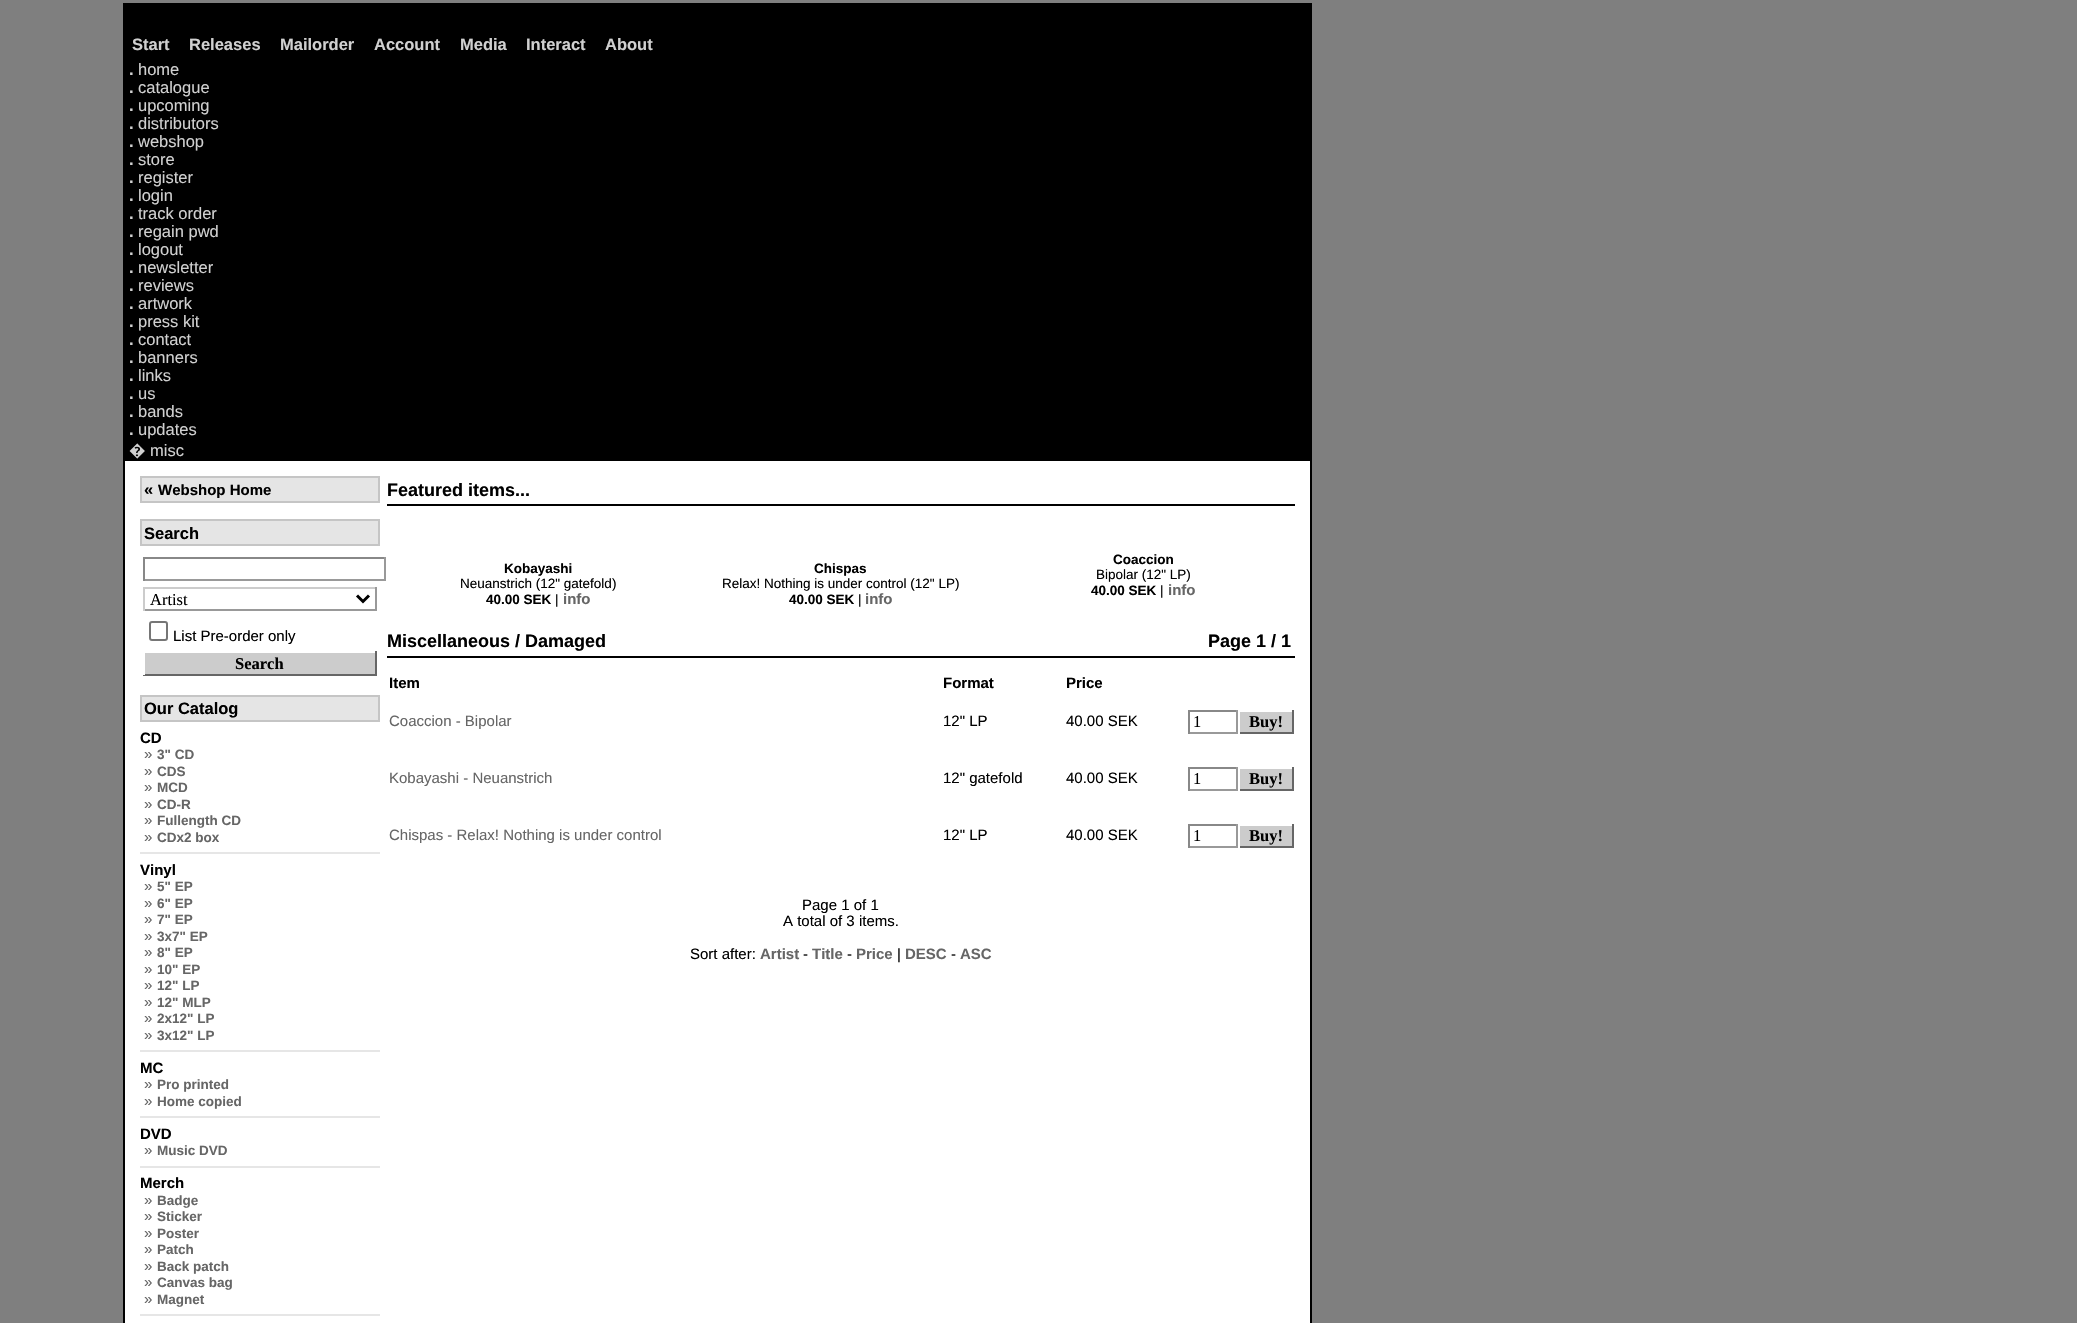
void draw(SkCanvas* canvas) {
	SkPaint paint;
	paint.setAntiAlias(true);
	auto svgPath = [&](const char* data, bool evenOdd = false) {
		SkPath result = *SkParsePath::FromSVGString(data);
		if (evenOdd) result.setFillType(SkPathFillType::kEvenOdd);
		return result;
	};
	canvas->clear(0xff7f7f7f);
	paint.setColor(0xff000000);
	canvas->drawRect(SkRect::MakeXYWH(1310, 3, 2, 1320), paint);
	canvas->drawRect(SkRect::MakeXYWH(123, 3, 2, 1320), paint);
	canvas->drawRect(SkRect::MakeXYWH(125, 3, 1185, 458), paint);
	SkFont f1(fontMgr->matchFamilyStyle("Liberation Sans", SkFontStyle::Bold()), 16.5);
	f1.setSubpixel(true);
	paint.setColor(0xffd0d0d0);
	canvas->drawString("Start", 132, 50, f1, paint);
	canvas->drawString("Releases", 189, 50, f1, paint);
	canvas->drawString("Mailorder", 280, 50, f1, paint);
	canvas->drawString("Account", 374, 50, f1, paint);
	canvas->drawString("Media", 460, 50, f1, paint);
	canvas->drawString("Interact", 526, 50, f1, paint);
	canvas->drawString("About", 605, 50, f1, paint);
	canvas->drawString(".", 129, 75, f1, paint);
	SkFont f2(fontMgr->matchFamilyStyle("Liberation Sans", SkFontStyle::Normal()), 16.5);
	f2.setSubpixel(true);
	canvas->drawString("home", 138, 75, f2, paint);
	canvas->drawString(".", 129, 93, f1, paint);
	canvas->drawString("catalogue", 138, 93, f2, paint);
	canvas->drawString(".", 129, 111, f1, paint);
	canvas->drawString("upcoming", 138, 111, f2, paint);
	canvas->drawString(".", 129, 129, f1, paint);
	canvas->drawString("distributors", 138, 129, f2, paint);
	canvas->drawString(".", 129, 147, f1, paint);
	canvas->drawString("webshop", 138, 147, f2, paint);
	canvas->drawString(".", 129, 165, f1, paint);
	canvas->drawString("store", 138, 165, f2, paint);
	canvas->drawString(".", 129, 183, f1, paint);
	canvas->drawString("register", 138, 183, f2, paint);
	canvas->drawString(".", 129, 201, f1, paint);
	canvas->drawString("login", 138, 201, f2, paint);
	canvas->drawString(".", 129, 219, f1, paint);
	canvas->drawString("track order", 138, 219, f2, paint);
	canvas->drawString(".", 129, 237, f1, paint);
	canvas->drawString("regain pwd", 138, 237, f2, paint);
	canvas->drawString(".", 129, 255, f1, paint);
	canvas->drawString("logout", 138, 255, f2, paint);
	canvas->drawString(".", 129, 273, f1, paint);
	canvas->drawString("newsletter", 138, 273, f2, paint);
	canvas->drawString(".", 129, 291, f1, paint);
	canvas->drawString("reviews", 138, 291, f2, paint);
	canvas->drawString(".", 129, 309, f1, paint);
	canvas->drawString("artwork", 138, 309, f2, paint);
	canvas->drawString(".", 129, 327, f1, paint);
	canvas->drawString("press kit", 138, 327, f2, paint);
	canvas->drawString(".", 129, 345, f1, paint);
	canvas->drawString("contact", 138, 345, f2, paint);
	canvas->drawString(".", 129, 363, f1, paint);
	canvas->drawString("banners", 138, 363, f2, paint);
	canvas->drawString(".", 129, 381, f1, paint);
	canvas->drawString("links", 138, 381, f2, paint);
	canvas->drawString(".", 129, 399, f1, paint);
	canvas->drawString("us", 138, 399, f2, paint);
	canvas->drawString(".", 129, 417, f1, paint);
	canvas->drawString("bands", 138, 417, f2, paint);
	canvas->drawString(".", 129, 435, f1, paint);
	canvas->drawString("updates", 138, 435, f2, paint);
	SkFont f3(fontMgr->matchFamilyStyle("Noto Sans", SkFontStyle::Bold()), 16.5);
	f3.setSubpixel(true);
	canvas->drawString("�", 129, 456, f3, paint);
	canvas->drawString("misc", 150, 456, f2, paint);
	paint.setColor(0xffffffff);
	canvas->drawRect(SkRect::MakeXYWH(125, 461, 1185, 862), paint);
	paint.setColor(0xffe5e5e5);
	canvas->drawRect(SkRect::MakeXYWH(141, 477, 238, 25), paint);
	paint.setStroke(true);
	paint.setStrokeWidth(2);
	paint.setColor(0xffc5c5c5);
	canvas->drawRect(SkRect::MakeXYWH(141, 477, 238, 25), paint);
	paint.setStroke(false);
	paint.setColor(0xff000000);
	canvas->drawString("«", 144, 495, f1, paint);
	SkFont f4(fontMgr->matchFamilyStyle("Liberation Sans", SkFontStyle::Bold()), 15);
	f4.setSubpixel(true);
	canvas->drawString("Webshop Home", 158, 495, f4, paint);
	paint.setColor(0xffe5e5e5);
	canvas->drawRect(SkRect::MakeXYWH(141, 520, 238, 25), paint);
	paint.setStroke(true);
	paint.setColor(0xffc5c5c5);
	canvas->drawRect(SkRect::MakeXYWH(141, 520, 238, 25), paint);
	paint.setStroke(false);
	paint.setColor(0xff000000);
	canvas->drawString("Search", 144, 539, f1, paint);
	paint.setColor(0xff888888);
	canvas->drawRect(SkRect::MakeXYWH(143, 557, 243, 2), paint);
	paint.setColor(0xff999999);
	canvas->drawRect(SkRect::MakeXYWH(384, 557, 2, 24), paint);
	canvas->drawRect(SkRect::MakeXYWH(143, 579, 243, 2), paint);
	paint.setColor(0xff888888);
	canvas->drawRect(SkRect::MakeXYWH(143, 557, 2, 24), paint);
	paint.setColor(0xffcccccc);
	canvas->drawRect(SkRect::MakeXYWH(143, 587, 234, 2), paint);
	paint.setColor(0xff999999);
	canvas->drawRect(SkRect::MakeXYWH(375, 587, 2, 24), paint);
	canvas->drawRect(SkRect::MakeXYWH(143, 609, 234, 2), paint);
	paint.setColor(0xffcccccc);
	canvas->drawRect(SkRect::MakeXYWH(143, 587, 2, 24), paint);
	paint.setStroke(true);
	paint.setStrokeWidth(3);
	paint.setColor(0xff000000);
	canvas->drawPath(svgPath("M357 595.5L363 601.5L369 595.5"), paint);
	SkFont f5(fontMgr->matchFamilyStyle("Liberation Serif", SkFontStyle::Normal()), 16.5);
	f5.setSubpixel(true);
	paint.setStroke(false);
	canvas->drawString("Artist", 150, 605, f5, paint);
	paint.setStroke(true);
	paint.setStrokeWidth(2);
	paint.setColor(0xff767676);
	canvas->drawRoundRect(SkRect::MakeXYWH(150, 622, 17, 18), 2, 2, paint);
	SkFont f6(fontMgr->matchFamilyStyle("Liberation Sans", SkFontStyle::Normal()), 15);
	f6.setSubpixel(true);
	paint.setStroke(false);
	paint.setColor(0xff000000);
	canvas->drawString("List Pre-order only", 173, 641, f6, paint);
	paint.setColor(0xffcccccc);
	canvas->drawRect(SkRect::MakeXYWH(145, 653, 230, 21), paint);
	paint.setColor(0xff666666);
	canvas->drawRect(SkRect::MakeXYWH(375, 651, 2, 24), paint);
	canvas->drawRect(SkRect::MakeXYWH(143, 674, 234, 2), paint);
	paint.setColor(0xffffffff);
	canvas->drawRect(SkRect::MakeXYWH(143, 674, 2, 1), paint);
	SkFont f7(fontMgr->matchFamilyStyle("Liberation Serif", SkFontStyle::Bold()), 16.5);
	f7.setSubpixel(true);
	paint.setColor(0xff000000);
	canvas->drawString("Search", 235, 669, f7, paint);
	paint.setColor(0xffe5e5e5);
	canvas->drawRect(SkRect::MakeXYWH(141, 696, 238, 25), paint);
	paint.setStroke(true);
	paint.setColor(0xffc5c5c5);
	canvas->drawRect(SkRect::MakeXYWH(141, 696, 238, 25), paint);
	paint.setStroke(false);
	paint.setColor(0xff000000);
	canvas->drawString("Our Catalog", 144, 714, f1, paint);
	canvas->drawString("CD", 140, 743, f4, paint);
	paint.setColor(0xff666666);
	canvas->drawString("»", 144, 759, f6, paint);
	SkFont f8(fontMgr->matchFamilyStyle("Liberation Sans", SkFontStyle::Bold()), 13.5);
	f8.setSubpixel(true);
	canvas->drawString("3\" CD", 157, 759, f8, paint);
	canvas->drawString("»", 144, 776, f6, paint);
	canvas->drawString("CDS", 157, 776, f8, paint);
	canvas->drawString("»", 144, 792, f6, paint);
	canvas->drawString("MCD", 157, 792, f8, paint);
	canvas->drawString("»", 144, 809, f6, paint);
	canvas->drawString("CD-R", 157, 809, f8, paint);
	canvas->drawString("»", 144, 825, f6, paint);
	canvas->drawString("Fullength CD", 157, 825, f8, paint);
	canvas->drawString("»", 144, 842, f6, paint);
	canvas->drawString("CDx2 box", 157, 842, f8, paint);
	paint.setColor(0xffe6e6e6);
	canvas->drawRect(SkRect::MakeXYWH(140, 852, 240, 2), paint);
	paint.setColor(0xff000000);
	canvas->drawString("Vinyl", 140, 875, f4, paint);
	paint.setColor(0xff666666);
	canvas->drawString("»", 144, 891, f6, paint);
	canvas->drawString("5\" EP", 157, 891, f8, paint);
	canvas->drawString("»", 144, 908, f6, paint);
	canvas->drawString("6\" EP", 157, 908, f8, paint);
	canvas->drawString("»", 144, 924, f6, paint);
	canvas->drawString("7\" EP", 157, 924, f8, paint);
	canvas->drawString("»", 144, 941, f6, paint);
	canvas->drawString("3x7\" EP", 157, 941, f8, paint);
	canvas->drawString("»", 144, 957, f6, paint);
	canvas->drawString("8\" EP", 157, 957, f8, paint);
	canvas->drawString("»", 144, 974, f6, paint);
	canvas->drawString("10\" EP", 157, 974, f8, paint);
	canvas->drawString("»", 144, 990, f6, paint);
	canvas->drawString("12\" LP", 157, 990, f8, paint);
	canvas->drawString("»", 144, 1007, f6, paint);
	canvas->drawString("12\" MLP", 157, 1007, f8, paint);
	canvas->drawString("»", 144, 1023, f6, paint);
	canvas->drawString("2x12\" LP", 157, 1023, f8, paint);
	canvas->drawString("»", 144, 1040, f6, paint);
	canvas->drawString("3x12\" LP", 157, 1040, f8, paint);
	paint.setColor(0xffe6e6e6);
	canvas->drawRect(SkRect::MakeXYWH(140, 1050, 240, 2), paint);
	paint.setColor(0xff000000);
	canvas->drawString("MC", 140, 1073, f4, paint);
	paint.setColor(0xff666666);
	canvas->drawString("»", 144, 1089, f6, paint);
	canvas->drawString("Pro printed", 157, 1089, f8, paint);
	canvas->drawString("»", 144, 1106, f6, paint);
	canvas->drawString("Home copied", 157, 1106, f8, paint);
	paint.setColor(0xffe6e6e6);
	canvas->drawRect(SkRect::MakeXYWH(140, 1116, 240, 2), paint);
	paint.setColor(0xff000000);
	canvas->drawString("DVD", 140, 1139, f4, paint);
	paint.setColor(0xff666666);
	canvas->drawString("»", 144, 1155, f6, paint);
	canvas->drawString("Music DVD", 157, 1155, f8, paint);
	paint.setColor(0xffe6e6e6);
	canvas->drawRect(SkRect::MakeXYWH(140, 1166, 240, 2), paint);
	paint.setColor(0xff000000);
	canvas->drawString("Merch", 140, 1188, f4, paint);
	paint.setColor(0xff666666);
	canvas->drawString("»", 144, 1205, f6, paint);
	canvas->drawString("Badge", 157, 1205, f8, paint);
	canvas->drawString("»", 144, 1221, f6, paint);
	canvas->drawString("Sticker", 157, 1221, f8, paint);
	canvas->drawString("»", 144, 1238, f6, paint);
	canvas->drawString("Poster", 157, 1238, f8, paint);
	canvas->drawString("»", 144, 1254, f6, paint);
	canvas->drawString("Patch", 157, 1254, f8, paint);
	canvas->drawString("»", 144, 1271, f6, paint);
	canvas->drawString("Back patch", 157, 1271, f8, paint);
	canvas->drawString("»", 144, 1287, f6, paint);
	canvas->drawString("Canvas bag", 157, 1287, f8, paint);
	canvas->drawString("»", 144, 1304, f6, paint);
	canvas->drawString("Magnet", 157, 1304, f8, paint);
	paint.setColor(0xffe6e6e6);
	canvas->drawRect(SkRect::MakeXYWH(140, 1314, 240, 2), paint);
	paint.setColor(0xff000000);
	canvas->drawRect(SkRect::MakeXYWH(387, 504, 908, 2), paint);
	SkFont f9(fontMgr->matchFamilyStyle("Liberation Sans", SkFontStyle::Bold()), 18);
	f9.setSubpixel(true);
	canvas->drawString("Featured items...", 387, 496, f9, paint);
	canvas->drawString("Kobayashi", 504, 573, f8, paint);
	SkFont f10(fontMgr->matchFamilyStyle("Liberation Sans", SkFontStyle::Normal()), 13.5);
	f10.setSubpixel(true);
	canvas->drawString("Neuanstrich (12\" gatefold)", 460, 588, f10, paint);
	canvas->drawString("40.00 SEK", 486, 604, f8, paint);
	canvas->drawString("|", 555, 604, f10, paint);
	paint.setColor(0xff666666);
	canvas->drawString("info", 563, 604, f4, paint);
	paint.setColor(0xff000000);
	canvas->drawString("Chispas", 814, 573, f8, paint);
	canvas->drawString("Relax! Nothing is under control (12\" LP)", 722, 588, f10, paint);
	canvas->drawString("40.00 SEK", 789, 604, f8, paint);
	canvas->drawString("|", 858, 604, f10, paint);
	paint.setColor(0xff666666);
	canvas->drawString("info", 865, 604, f4, paint);
	paint.setColor(0xff000000);
	canvas->drawString("Coaccion", 1113, 564, f8, paint);
	canvas->drawString("Bipolar (12\" LP)", 1096, 579, f10, paint);
	canvas->drawString("40.00 SEK", 1091, 595, f8, paint);
	canvas->drawString("|", 1160, 595, f10, paint);
	paint.setColor(0xff666666);
	canvas->drawString("info", 1168, 595, f4, paint);
	paint.setColor(0xff000000);
	canvas->drawRect(SkRect::MakeXYWH(387, 656, 908, 2), paint);
	canvas->drawString("Miscellaneous / Damaged", 387, 647, f9, paint);
	canvas->drawString("Page 1 / 1", 1208, 647, f9, paint);
	canvas->drawString("Item", 389, 688, f4, paint);
	canvas->drawString("Format", 943, 688, f4, paint);
	canvas->drawString("Price", 1066, 688, f4, paint);
	paint.setColor(0xff666666);
	canvas->drawString("Coaccion - Bipolar", 389, 726, f6, paint);
	paint.setColor(0xff000000);
	canvas->drawString("12\" LP", 943, 726, f6, paint);
	canvas->drawString("40.00 SEK", 1066, 726, f6, paint);
	paint.setColor(0xff888888);
	canvas->drawRect(SkRect::MakeXYWH(1188, 710, 50, 2), paint);
	paint.setColor(0xff999999);
	canvas->drawRect(SkRect::MakeXYWH(1236, 710, 2, 24), paint);
	canvas->drawRect(SkRect::MakeXYWH(1188, 732, 50, 2), paint);
	paint.setColor(0xff888888);
	canvas->drawRect(SkRect::MakeXYWH(1188, 710, 2, 24), paint);
	paint.setColor(0xff000000);
	canvas->drawString("1", 1193, 727, f5, paint);
	paint.setColor(0xffcccccc);
	canvas->drawRect(SkRect::MakeXYWH(1240, 712, 52, 20), paint);
	paint.setColor(0xff666666);
	canvas->drawRect(SkRect::MakeXYWH(1292, 710, 2, 24), paint);
	canvas->drawRect(SkRect::MakeXYWH(1238, 732, 55, 2), paint);
	paint.setColor(0xffffffff);
	canvas->drawRect(SkRect::MakeXYWH(1238, 732, 2, 2), paint);
	paint.setColor(0xff000000);
	canvas->drawString("Buy!", 1249, 727, f7, paint);
	paint.setColor(0xff666666);
	canvas->drawString("Kobayashi - Neuanstrich", 389, 783, f6, paint);
	paint.setColor(0xff000000);
	canvas->drawString("12\" gatefold", 943, 783, f6, paint);
	canvas->drawString("40.00 SEK", 1066, 783, f6, paint);
	paint.setColor(0xff888888);
	canvas->drawRect(SkRect::MakeXYWH(1188, 767, 50, 2), paint);
	paint.setColor(0xff999999);
	canvas->drawRect(SkRect::MakeXYWH(1236, 767, 2, 24), paint);
	canvas->drawRect(SkRect::MakeXYWH(1188, 789, 50, 2), paint);
	paint.setColor(0xff888888);
	canvas->drawRect(SkRect::MakeXYWH(1188, 767, 2, 24), paint);
	paint.setColor(0xff000000);
	canvas->drawString("1", 1193, 784, f5, paint);
	paint.setColor(0xffcccccc);
	canvas->drawRect(SkRect::MakeXYWH(1240, 769, 52, 20), paint);
	paint.setColor(0xff666666);
	canvas->drawRect(SkRect::MakeXYWH(1292, 767, 2, 24), paint);
	canvas->drawRect(SkRect::MakeXYWH(1238, 789, 55, 2), paint);
	paint.setColor(0xffffffff);
	canvas->drawRect(SkRect::MakeXYWH(1238, 789, 2, 2), paint);
	paint.setColor(0xff000000);
	canvas->drawString("Buy!", 1249, 784, f7, paint);
	paint.setColor(0xff666666);
	canvas->drawString("Chispas - Relax! Nothing is under control", 389, 840, f6, paint);
	paint.setColor(0xff000000);
	canvas->drawString("12\" LP", 943, 840, f6, paint);
	canvas->drawString("40.00 SEK", 1066, 840, f6, paint);
	paint.setColor(0xff888888);
	canvas->drawRect(SkRect::MakeXYWH(1188, 824, 50, 2), paint);
	paint.setColor(0xff999999);
	canvas->drawRect(SkRect::MakeXYWH(1236, 824, 2, 24), paint);
	canvas->drawRect(SkRect::MakeXYWH(1188, 846, 50, 2), paint);
	paint.setColor(0xff888888);
	canvas->drawRect(SkRect::MakeXYWH(1188, 824, 2, 24), paint);
	paint.setColor(0xff000000);
	canvas->drawString("1", 1193, 841, f5, paint);
	paint.setColor(0xffcccccc);
	canvas->drawRect(SkRect::MakeXYWH(1240, 826, 52, 20), paint);
	paint.setColor(0xff666666);
	canvas->drawRect(SkRect::MakeXYWH(1292, 824, 2, 24), paint);
	canvas->drawRect(SkRect::MakeXYWH(1238, 846, 55, 2), paint);
	paint.setColor(0xffffffff);
	canvas->drawRect(SkRect::MakeXYWH(1238, 846, 2, 2), paint);
	paint.setColor(0xff000000);
	canvas->drawString("Buy!", 1249, 841, f7, paint);
	canvas->drawString("Page 1 of 1", 802, 910, f6, paint);
	canvas->drawString("A total of 3 items.", 783, 926, f6, paint);
	canvas->drawString("Sort after:", 690, 959, f6, paint);
	paint.setColor(0xff666666);
	canvas->drawString("Artist", 760, 959, f4, paint);
	paint.setColor(0xff000000);
	canvas->drawString("-", 803, 959, f6, paint);
	paint.setColor(0xff666666);
	canvas->drawString("Title", 812, 959, f4, paint);
	paint.setColor(0xff000000);
	canvas->drawString("-", 847, 959, f6, paint);
	paint.setColor(0xff666666);
	canvas->drawString("Price", 856, 959, f4, paint);
	paint.setColor(0xff000000);
	canvas->drawString("|", 897, 959, f6, paint);
	paint.setColor(0xff666666);
	canvas->drawString("DESC", 905, 959, f4, paint);
	paint.setColor(0xff000000);
	canvas->drawString("-", 951, 959, f6, paint);
	paint.setColor(0xff666666);
	canvas->drawString("ASC", 960, 959, f4, paint);
}
